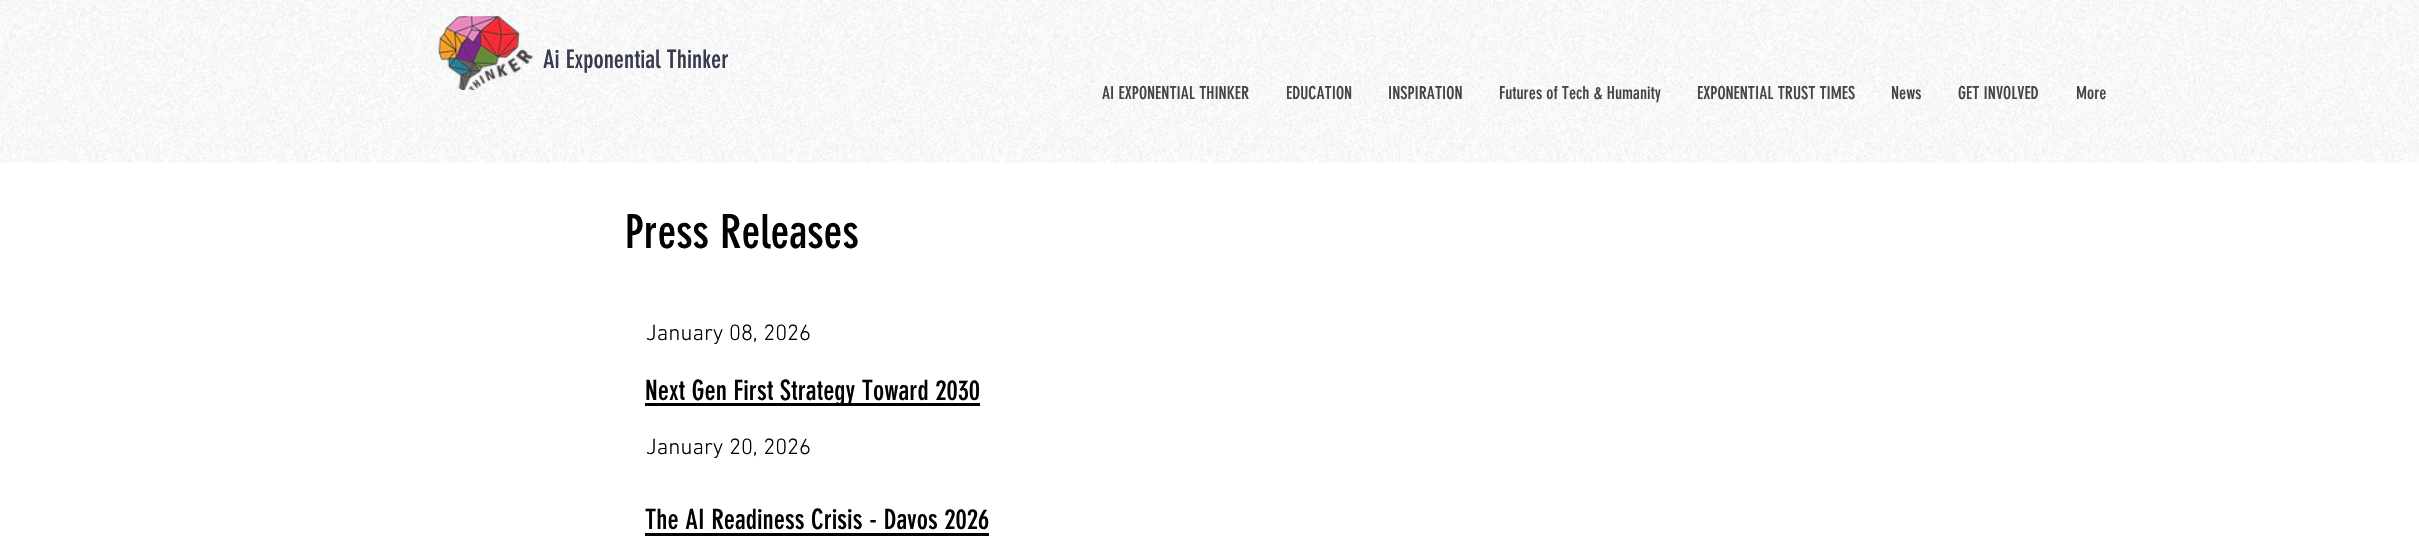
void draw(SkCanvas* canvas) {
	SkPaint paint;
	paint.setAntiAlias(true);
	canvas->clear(0xffffffff);
	canvas->drawImageRect(SkImages::DeferredFromEncodedData(SkData::MakeFromFileName("img1.png")), SkRect::MakeXYWH(0, 0, 2419, 163), SkSamplingOptions());
	canvas->drawImageRect(SkImages::DeferredFromEncodedData(SkData::MakeFromFileName("img2.png")), SkRect::MakeXYWH(438, 16, 95, 74), SkSamplingOptions());
	SkFont f1(fontMgr->matchFamilyStyle("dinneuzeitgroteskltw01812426", SkFontStyle::Normal()), 25);
	f1.setSubpixel(true);
	paint.setColor(0xff373b4d);
	canvas->drawString("Ai Exponential Thinker", 543, 68, f1, paint);
	SkFont f2(fontMgr->matchFamilyStyle("dinneuzeitgroteskltw01812426", SkFontStyle::Normal()), 17.5);
	f2.setSubpixel(true);
	paint.setColor(0xff444444);
	canvas->drawString("AI EXPONENTIAL THINKER", 1102, 99, f2, paint);
	canvas->drawString("EDUCATION", 1286, 99, f2, paint);
	canvas->drawString("INSPIRATION", 1388, 99, f2, paint);
	canvas->drawString("Futures of Tech & Humanity", 1499, 99, f2, paint);
	canvas->drawString("EXPONENTIAL TRUST TIMES", 1697, 99, f2, paint);
	canvas->drawString("News", 1891, 99, f2, paint);
	canvas->drawString("GET INVOLVED", 1958, 99, f2, paint);
	canvas->drawString("More", 2076, 99, f2, paint);
	SkFont f3(fontMgr->matchFamilyStyle("dinneuzeitgroteskltw01812426", SkFontStyle::Normal()), 46.25);
	f3.setSubpixel(true);
	paint.setColor(0xff020202);
	canvas->drawString("Press Releases", 625, 248, f3, paint);
	SkFont f4(fontMgr->matchFamilyStyle("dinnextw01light", SkFontStyle(300, SkFontStyle::kNormal_Width, SkFontStyle::kUpright_Slant)), 22.5);
	f4.setSubpixel(true);
	canvas->drawString("January 08, 2026", 646, 340, f4, paint);
	canvas->drawRect(SkRect::MakeXYWH(645, 403, 335, 3), paint);
	SkFont f5(fontMgr->matchFamilyStyle("dinneuzeitgroteskltw01812426", SkFontStyle::Normal()), 27.5);
	f5.setSubpixel(true);
	canvas->drawString("Next Gen First Strategy Toward 2030", 645, 400, f5, paint);
	canvas->drawString("January 20, 2026", 646, 454, f4, paint);
	canvas->drawString("The AI Readiness Crisis - Davos 2026", 645, 529, f5, paint);
	canvas->drawRect(SkRect::MakeXYWH(645, 533, 344, 3), paint);
}
